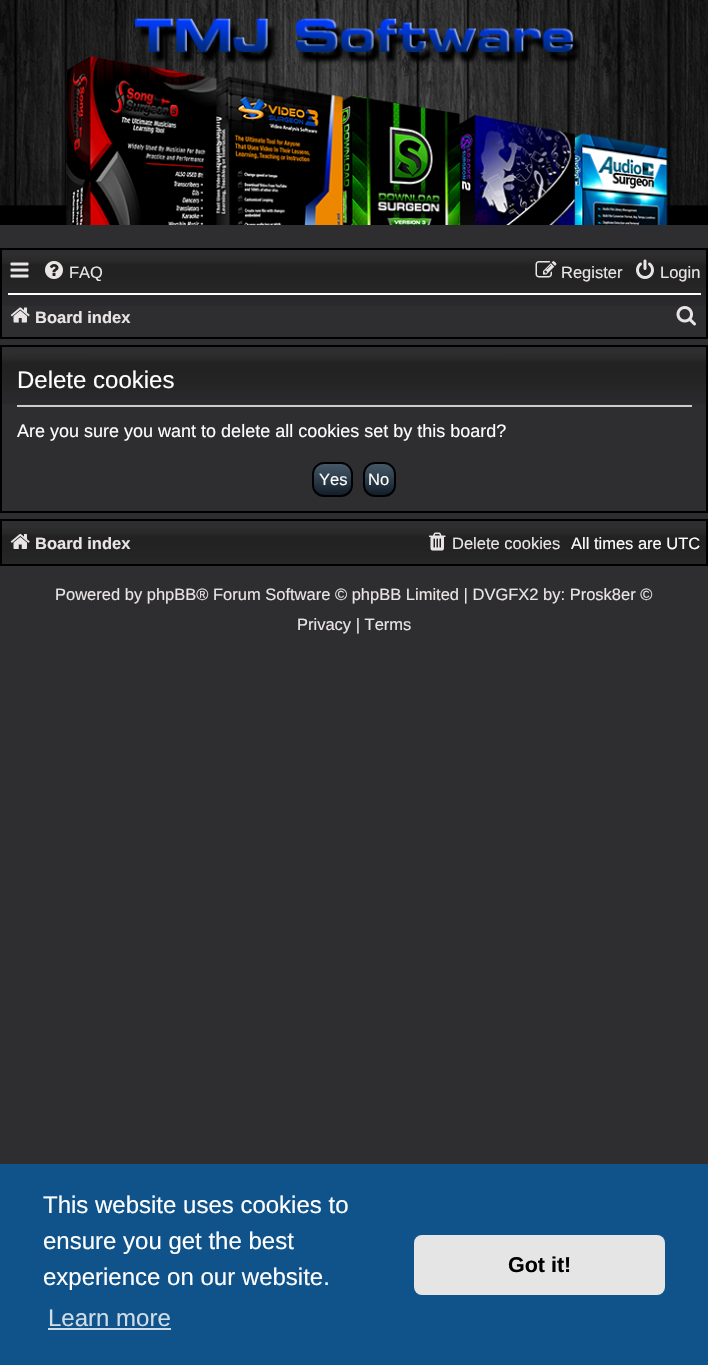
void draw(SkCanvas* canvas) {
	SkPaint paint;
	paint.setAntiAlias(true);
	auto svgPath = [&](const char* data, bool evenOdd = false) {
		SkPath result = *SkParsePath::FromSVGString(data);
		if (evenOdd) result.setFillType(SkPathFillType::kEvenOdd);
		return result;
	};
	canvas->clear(0xff2e2e31);
	canvas->drawImageRect(SkImages::DeferredFromEncodedData(SkData::MakeFromFileName("img1.png")), SkRect::MakeXYWH(0, 0, 708, 225), SkSamplingOptions());
	canvas->drawImageRect(SkImages::DeferredFromEncodedData(SkData::MakeFromFileName("img2.png")), SkRect::MakeXYWH(2, 256, 704, 50), SkSamplingOptions());
	paint.setStroke(true);
	paint.setStrokeWidth(2);
	paint.setColor(0xff000000);
	canvas->drawRect(SkRect::MakeXYWH(1, 249, 706, 89), paint);
	canvas->drawImageRect(SkImages::DeferredFromEncodedData(SkData::MakeFromFileName("img3.png")), SkRect::MakeXYWH(10, 262, 19, 16), SkSamplingOptions());
	canvas->drawImageRect(SkImages::DeferredFromEncodedData(SkData::MakeFromFileName("img4.png")), SkRect::MakeXYWH(45, 261, 18, 18), SkSamplingOptions());
	SkFont f1(fontMgr->matchFamilyStyle("Liberation Sans", SkFontStyle::Normal()), 16.5);
	f1.setSubpixel(true);
	paint.setStroke(false);
	paint.setColor(0xffeae5e5);
	canvas->drawString("FAQ", 69, 278, f1, paint);
	canvas->drawImageRect(SkImages::DeferredFromEncodedData(SkData::MakeFromFileName("img5.png")), SkRect::MakeXYWH(535, 261, 22, 17), SkSamplingOptions());
	canvas->drawString("Register", 561, 278, f1, paint);
	canvas->drawImageRect(SkImages::DeferredFromEncodedData(SkData::MakeFromFileName("img6.png")), SkRect::MakeXYWH(636, 259, 18, 20), SkSamplingOptions());
	canvas->drawString("Login", 660, 278, f1, paint);
	paint.setColor(0xffffffff);
	canvas->drawRect(SkRect::MakeXYWH(8, 293, 693, 2), paint);
	canvas->drawImageRect(SkImages::DeferredFromEncodedData(SkData::MakeFromFileName("img7.png")), SkRect::MakeXYWH(10, 307, 20, 16), SkSamplingOptions());
	SkFont f2(fontMgr->matchFamilyStyle("Liberation Sans", SkFontStyle::Bold()), 16.5);
	f2.setSubpixel(true);
	paint.setColor(0xffeae5e5);
	canvas->drawString("Board index", 35, 323, f2, paint);
	canvas->drawImageRect(SkImages::DeferredFromEncodedData(SkData::MakeFromFileName("img8.png")), SkRect::MakeXYWH(676, 306, 20, 20), SkSamplingOptions());
	canvas->drawImageRect(SkImages::DeferredFromEncodedData(SkData::MakeFromFileName("img9.png")), SkRect::MakeXYWH(2, 354, 704, 50), SkSamplingOptions());
	paint.setStroke(true);
	paint.setColor(0xff000000);
	canvas->drawRect(SkRect::MakeXYWH(1, 346, 706, 166), paint);
	paint.setStroke(false);
	paint.setColor(0xffcccccc);
	canvas->drawRect(SkRect::MakeXYWH(17, 405, 675, 2), paint);
	SkFont f3(fontMgr->matchFamilyStyle("Liberation Sans", SkFontStyle::Normal()), 24);
	f3.setSubpixel(true);
	paint.setColor(0xffffffff);
	canvas->drawString("Delete cookies", 17, 388, f3, paint);
	SkFont f4(fontMgr->matchFamilyStyle("Liberation Sans", SkFontStyle::Normal()), 18);
	f4.setSubpixel(true);
	canvas->drawString("Are you sure you want to delete all cookies set by this board?", 17, 437, f4, paint);
	canvas->save();
	canvas->clipPath(svgPath("M324 462H341C347.5 462 353 467.5 353 474V485C353 491.5 347.5 497 341 497H324C317.5 497 312 491.5 312 485V474C312 467.5 317.5 462 324 462Z"), true);
	{
		const SkColor colors[] = {0xff465968, 0xff121e2a};
		const float stops[] = {0, 1};
		const SkPoint ends[] = {{332, 464}, {332, 495}};
		paint.setShader(SkGradientShader::MakeLinear(ends, colors, stops, 2, SkTileMode::kClamp));
		paint.setAlpha(255);
	}
	canvas->drawRect(SkRect::MakeXYWH(312, 464, 41, 31), paint);
	canvas->restore();
	paint.setStroke(true);
	paint.setShader(nullptr);
	paint.setColor(0xff000000);
	canvas->drawRoundRect(SkRect::MakeXYWH(313, 463, 39, 33), 11, 11, paint);
	paint.setStroke(false);
	paint.setColor(0xffffffff);
	canvas->drawString("Yes", 319, 485, f1, paint);
	canvas->save();
	canvas->clipPath(svgPath("M375 462H384C390.5 462 396 467.5 396 474V485C396 491.5 390.5 497 384 497H375C368.5 497 363 491.5 363 485V474C363 467.5 368.5 462 375 462Z"), true);
	{
		const SkColor colors[] = {0xff465968, 0xff121e2a};
		const float stops[] = {0, 1};
		const SkPoint ends[] = {{380, 464}, {380, 495}};
		paint.setShader(SkGradientShader::MakeLinear(ends, colors, stops, 2, SkTileMode::kClamp));
		paint.setAlpha(255);
	}
	canvas->drawRect(SkRect::MakeXYWH(363, 464, 33, 31), paint);
	canvas->restore();
	paint.setStroke(true);
	paint.setShader(nullptr);
	paint.setColor(0xff000000);
	canvas->drawRoundRect(SkRect::MakeXYWH(364, 463, 31, 33), 11, 11, paint);
	paint.setStroke(false);
	paint.setColor(0xffffffff);
	canvas->drawString("No", 368, 485, f1, paint);
	canvas->drawImageRect(SkImages::DeferredFromEncodedData(SkData::MakeFromFileName("img10.png")), SkRect::MakeXYWH(2, 528, 704, 36), SkSamplingOptions());
	paint.setStroke(true);
	paint.setColor(0xff000000);
	canvas->drawRect(SkRect::MakeXYWH(1, 520, 706, 45), paint);
	canvas->drawImageRect(SkImages::DeferredFromEncodedData(SkData::MakeFromFileName("img11.png")), SkRect::MakeXYWH(10, 534, 20, 15), SkSamplingOptions());
	paint.setStroke(false);
	paint.setColor(0xffeae5e5);
	canvas->drawString("Board index", 35, 549, f2, paint);
	canvas->drawImageRect(SkImages::DeferredFromEncodedData(SkData::MakeFromFileName("img12.png")), SkRect::MakeXYWH(429, 532, 17, 19), SkSamplingOptions());
	canvas->drawString("Delete cookies", 452, 549, f1, paint);
	paint.setColor(0xffffffff);
	canvas->drawString("All times are UTC", 571, 549, f1, paint);
	paint.setColor(0xffeae5e5);
	canvas->drawString("Powered by phpBB® Forum Software © phpBB Limited | DVGFX2 by: Prosk8er ©", 55, 600, f1, paint);
	canvas->drawString("Privacy | Terms", 297, 630, f1, paint);
	paint.setColor(0xff0f538a);
	canvas->drawRect(SkRect::MakeXYWH(0, 1164, 708, 201), paint);
	paint.setColor(0xffffffff);
	canvas->drawString("This website uses cookies to", 43, 1213, f3, paint);
	canvas->drawString("ensure you get the best", 43, 1249, f3, paint);
	canvas->drawString("experience on our website.", 43, 1285, f3, paint);
	paint.setColor(0xffcfdde8);
	canvas->drawString("Learn more", 48, 1326, f3, paint);
	canvas->drawRect(SkRect::MakeXYWH(48, 1328, 123, 2), paint);
	paint.setColor(0xffe5e5e5);
	canvas->drawRoundRect(SkRect::MakeXYWH(414, 1235, 251, 60), 8, 8, paint);
	SkFont f5(fontMgr->matchFamilyStyle("Liberation Sans", SkFontStyle::Bold()), 21.5);
	f5.setSubpixel(true);
	paint.setColor(0xff000000);
	canvas->drawString("Got it!", 508, 1272, f5, paint);
}
